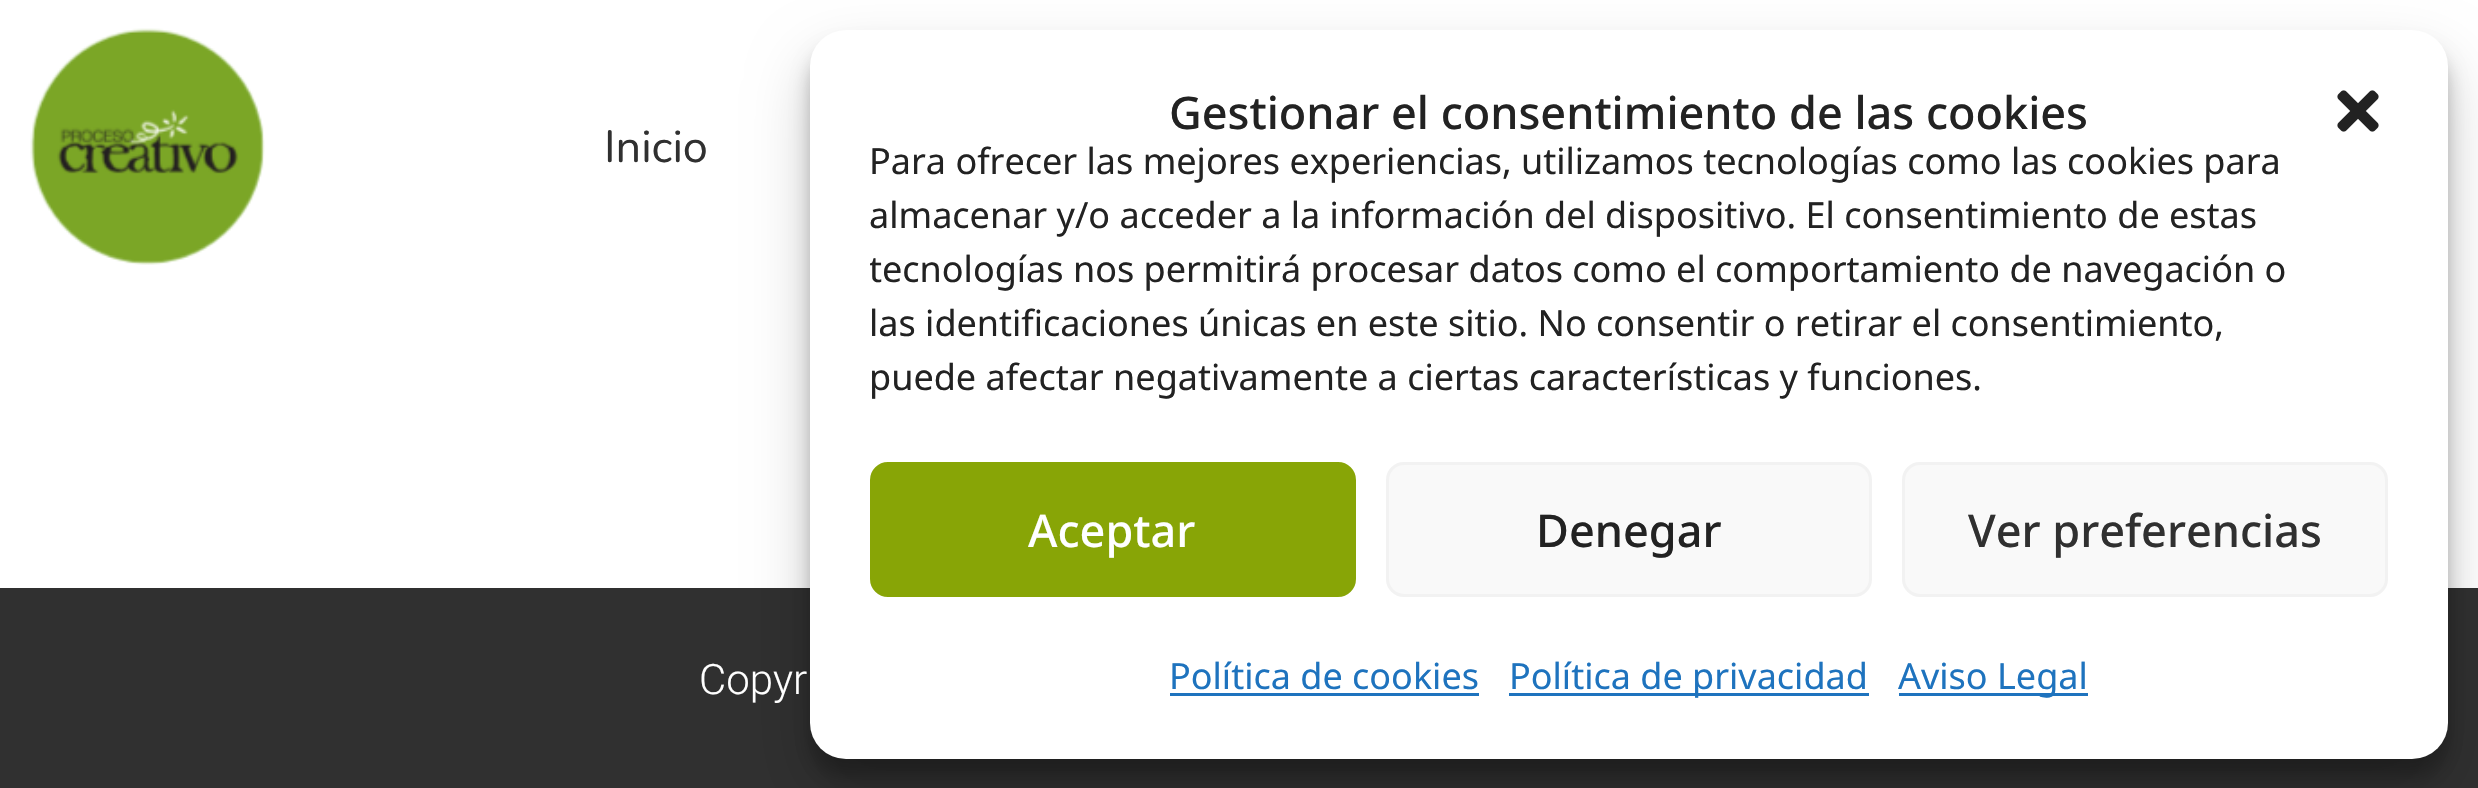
void draw(SkCanvas* canvas) {
	SkPaint paint;
	paint.setAntiAlias(true);
	canvas->clear(0xff303030);
	paint.setColor(0xffffffff);
	canvas->drawRect(SkRect::MakeXYWH(0, 0, 2478, 588), paint);
	canvas->drawImageRect(SkImages::DeferredFromEncodedData(SkData::MakeFromFileName("img1.png")), SkRect::MakeXYWH(30, 28, 235, 237), SkSamplingOptions());
	SkFont f1(fontMgr->matchFamilyStyle("Nunito", SkFontStyle(200, SkFontStyle::kNormal_Width, SkFontStyle::kUpright_Slant)), 45);
	f1.setSubpixel(true);
	paint.setColor(0xff303030);
	canvas->drawString("Inicio", 604, 162, f1, paint);
	paint.setColor(0x3b000000);
	paint.setMaskFilter(SkMaskFilter::MakeBlur(kNormal_SkBlurStyle, 9));
	canvas->drawRoundRect(SkRect::MakeXYWH(810, 48, 1638, 729), 36, 36, paint);
	paint.setMaskFilter(nullptr);
	paint.setColor(0x30000000);
	paint.setMaskFilter(SkMaskFilter::MakeBlur(kNormal_SkBlurStyle, 30));
	canvas->drawRoundRect(SkRect::MakeXYWH(810, 60, 1638, 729), 36, 36, paint);
	paint.setMaskFilter(nullptr);
	paint.setColor(0xffffffff);
	canvas->drawRoundRect(SkRect::MakeXYWH(810, 30, 1638, 729), 36, 36, paint);
	SkFont f2(fontMgr->matchFamilyStyle("Noto Sans", SkFontStyle(500, SkFontStyle::kNormal_Width, SkFontStyle::kUpright_Slant)), 45);
	f2.setSubpixel(true);
	paint.setColor(0xff222222);
	canvas->drawString("Gestionar el consentimiento de las cookies", 1169, 129, f2, paint);
	canvas->drawImageRect(SkImages::DeferredFromEncodedData(SkData::MakeFromFileName("img2.png")), SkRect::MakeXYWH(2337, 90, 42, 42), SkSamplingOptions());
	SkFont f3(fontMgr->matchFamilyStyle("Noto Sans", SkFontStyle::Normal()), 36);
	f3.setSubpixel(true);
	canvas->drawString("Para ofrecer las mejores experiencias, utilizamos tecnologías como las cookies para", 869, 174, f3, paint);
	canvas->drawString("almacenar y/o acceder a la información del dispositivo. El consentimiento de estas", 869, 228, f3, paint);
	canvas->save();
	canvas->clipRect(SkRect::MakeXYWH(870, 135, 1518, 267));
	canvas->drawString("tecnologías nos permitirá procesar datos como el comportamiento de navegación o", 869, 282, f3, paint);
	canvas->restore();
	canvas->drawString("las identificaciones únicas en este sitio. No consentir o retirar el consentimiento,", 869, 336, f3, paint);
	canvas->drawString("puede afectar negativamente a ciertas características y funciones.", 869, 390, f3, paint);
	paint.setColor(0xff88a506);
	canvas->drawRoundRect(SkRect::MakeXYWH(871.5, 463.5, 483, 132), 16.5, 16.5, paint);
	paint.setStroke(true);
	paint.setStrokeWidth(3);
	canvas->drawRoundRect(SkRect::MakeXYWH(871.5, 463.5, 483, 132), 16.5, 16.5, paint);
	paint.setStroke(false);
	paint.setColor(0xffffffff);
	canvas->drawString("Aceptar", 1028, 547, f2, paint);
	paint.setColor(0xfff9f9f9);
	canvas->drawRoundRect(SkRect::MakeXYWH(1387.5, 463.5, 483, 132), 16.5, 16.5, paint);
	paint.setStroke(true);
	paint.setColor(0xfff2f2f2);
	canvas->drawRoundRect(SkRect::MakeXYWH(1387.5, 463.5, 483, 132), 16.5, 16.5, paint);
	paint.setStroke(false);
	paint.setColor(0xff222222);
	canvas->drawString("Denegar", 1536, 547, f2, paint);
	paint.setColor(0xfff9f9f9);
	canvas->drawRoundRect(SkRect::MakeXYWH(1903.5, 463.5, 483, 132), 16.5, 16.5, paint);
	paint.setStroke(true);
	paint.setColor(0xfff2f2f2);
	canvas->drawRoundRect(SkRect::MakeXYWH(1903.5, 463.5, 483, 132), 16.5, 16.5, paint);
	paint.setStroke(false);
	paint.setColor(0xff303030);
	canvas->drawString("Ver preferencias", 1968, 547, f2, paint);
	paint.setColor(0xff1e73be);
	canvas->drawString("Política de cookies", 1169, 689, f3, paint);
	canvas->drawRect(SkRect::MakeXYWH(1170, 693, 309, 3), paint);
	canvas->drawRect(SkRect::MakeXYWH(1509, 693, 360, 3), paint);
	canvas->drawString("Política de privacidad", 1509, 689, f3, paint);
	canvas->drawRect(SkRect::MakeXYWH(1899, 693, 189, 3), paint);
	canvas->drawString("Aviso Legal", 1898, 689, f3, paint);
	SkFont f4(fontMgr->matchFamilyStyle("Roboto", SkFontStyle(300, SkFontStyle::kNormal_Width, SkFontStyle::kUpright_Slant)), 42);
	f4.setSubpixel(true);
	paint.setColor(0xffffffff);
	canvas->drawString("Copyr", 699, 694, f4, paint);
}
